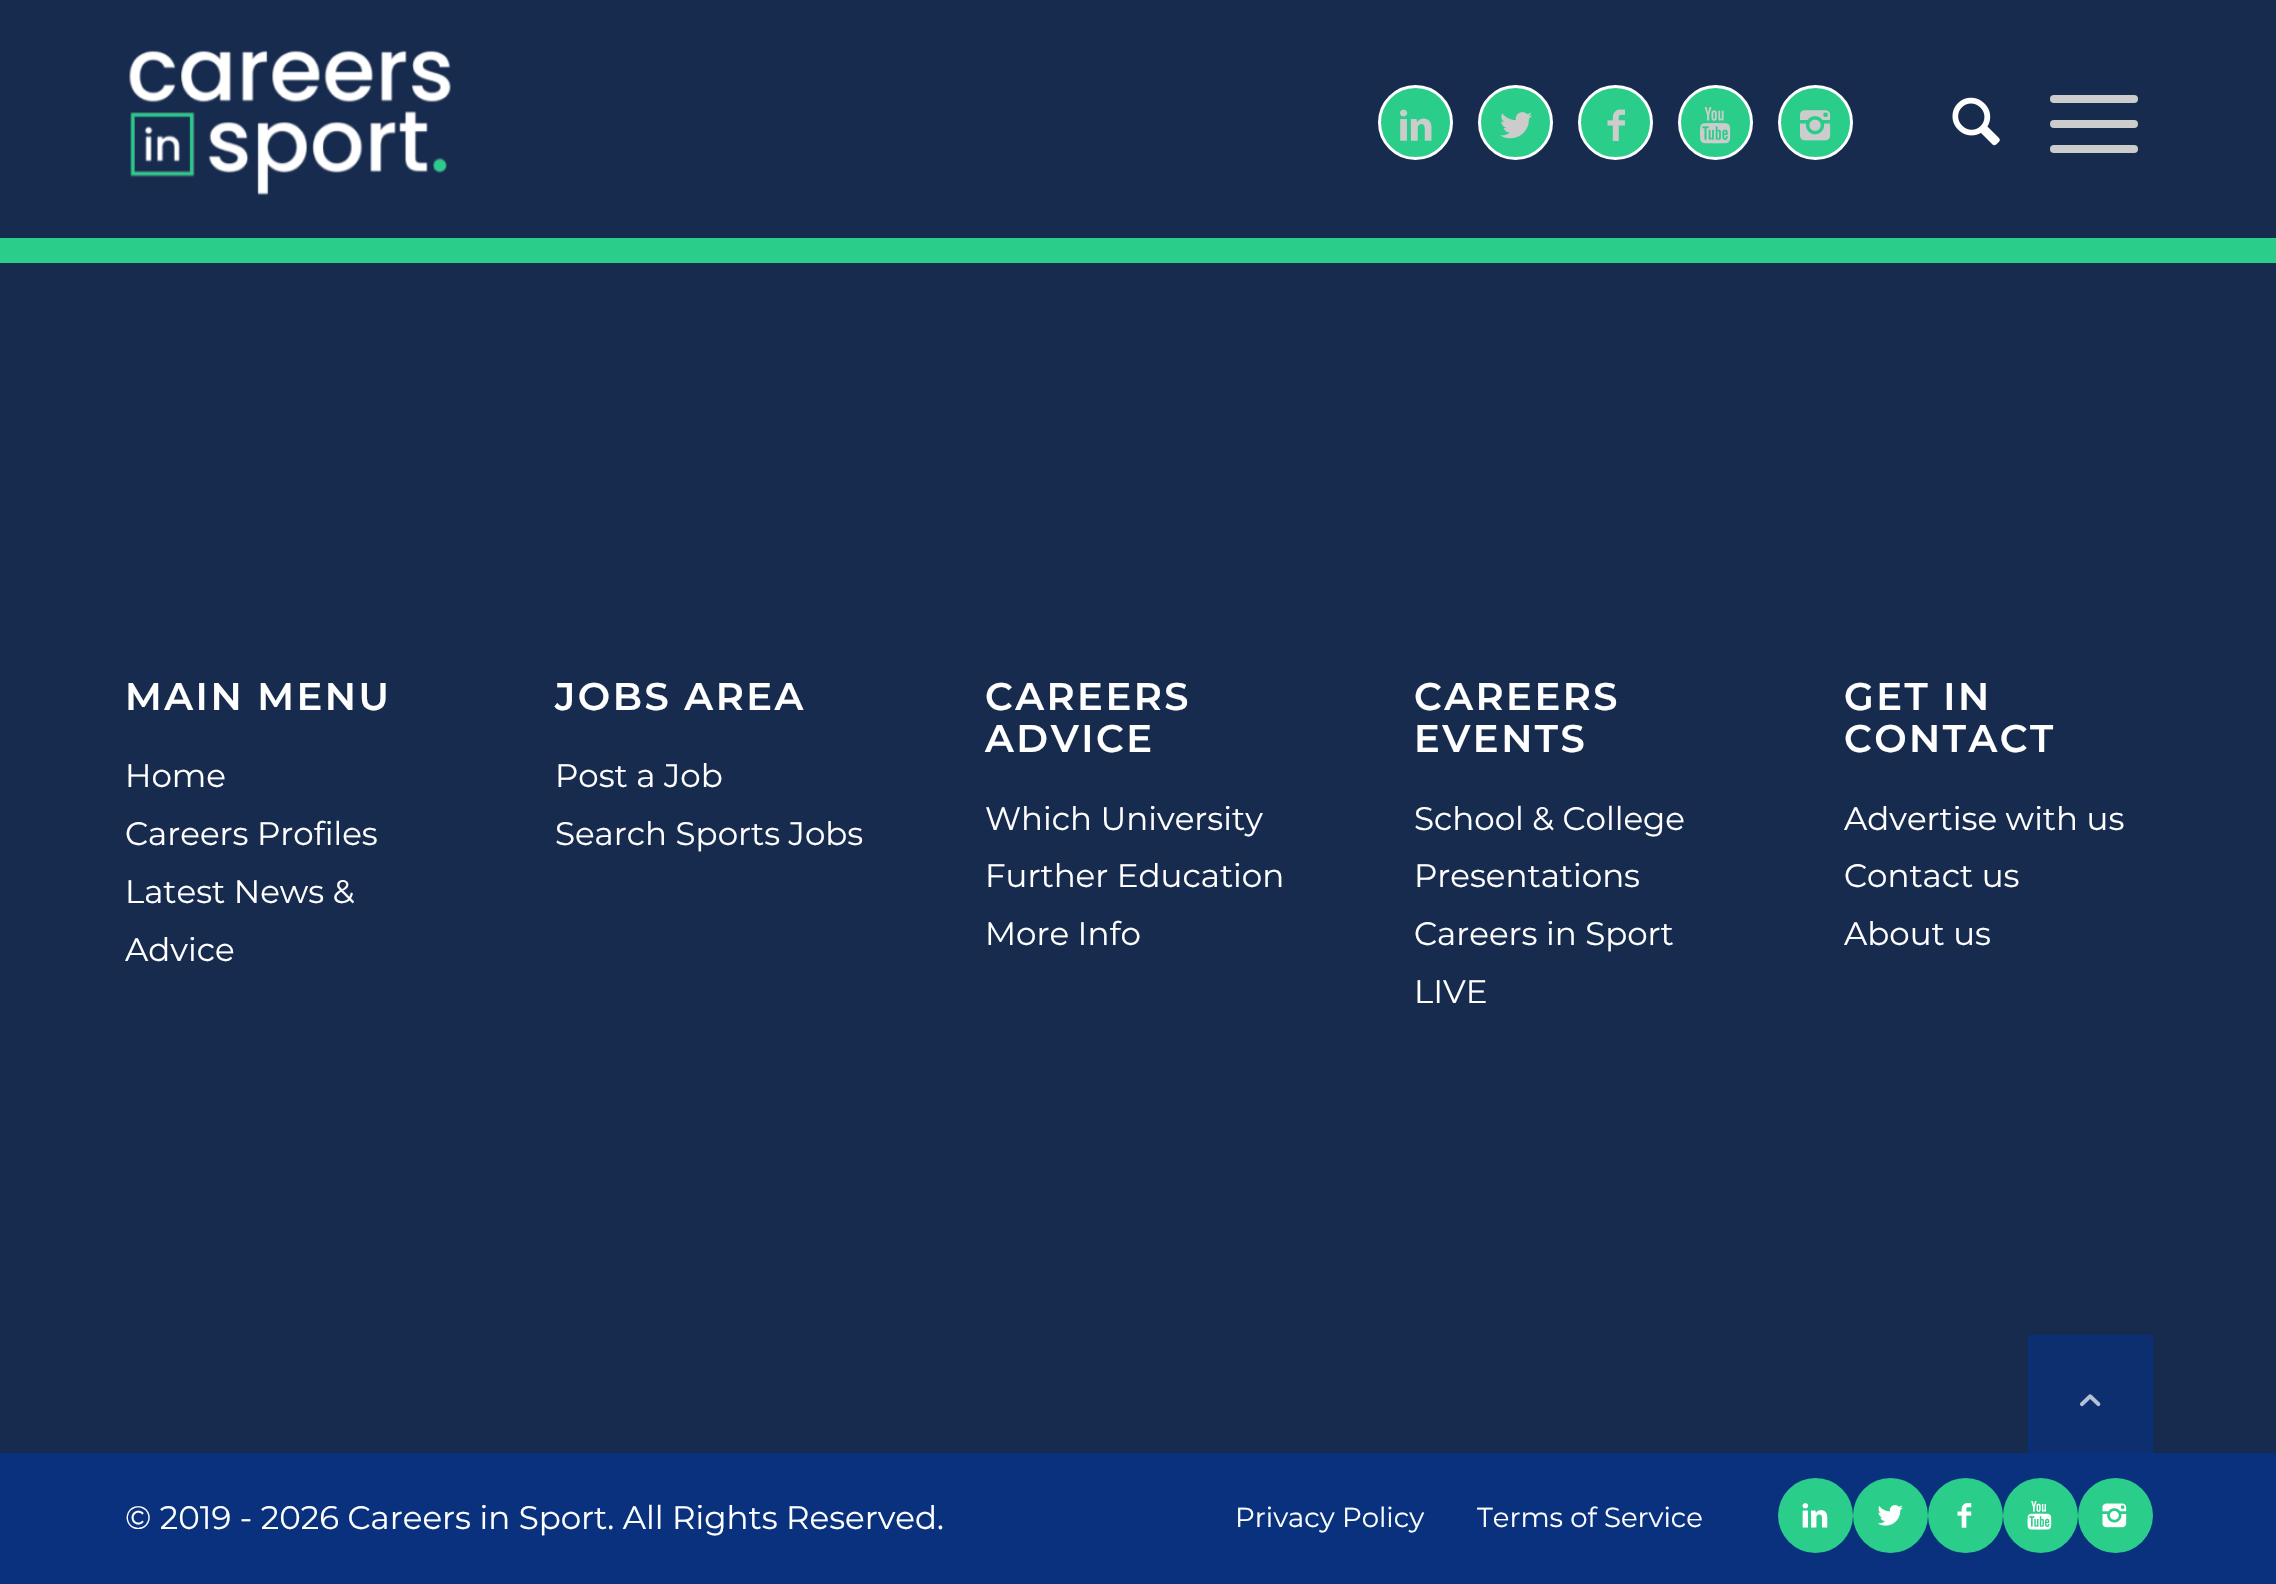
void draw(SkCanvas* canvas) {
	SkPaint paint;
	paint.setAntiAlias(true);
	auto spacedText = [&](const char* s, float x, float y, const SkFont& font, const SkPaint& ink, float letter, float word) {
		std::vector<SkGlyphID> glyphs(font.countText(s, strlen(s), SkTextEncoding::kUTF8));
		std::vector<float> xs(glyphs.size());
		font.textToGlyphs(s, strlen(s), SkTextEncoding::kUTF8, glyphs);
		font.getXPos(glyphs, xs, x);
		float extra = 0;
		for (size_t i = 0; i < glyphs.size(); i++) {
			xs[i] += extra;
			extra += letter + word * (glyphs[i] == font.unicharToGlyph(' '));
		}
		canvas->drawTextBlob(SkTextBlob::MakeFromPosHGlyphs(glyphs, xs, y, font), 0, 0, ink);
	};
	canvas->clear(0xff172b4e);
	canvas->drawImageRect(SkImages::DeferredFromEncodedData(SkData::MakeFromFileName("img1.png")), SkRect::MakeXYWH(129, 50, 322, 146), SkSamplingOptions());
	paint.setColor(0xff2bcd8a);
	canvas->drawCircle(1415.5, 122.5, 36, paint);
	paint.setStroke(true);
	paint.setStrokeWidth(3);
	paint.setColor(0xffffffff);
	canvas->drawCircle(1415.5, 122.5, 36, paint);
	canvas->drawImageRect(SkImages::DeferredFromEncodedData(SkData::MakeFromFileName("img2.png")), SkRect::MakeXYWH(1400, 109, 32, 32), SkSamplingOptions());
	paint.setStroke(false);
	paint.setColor(0xff2bcd8a);
	canvas->drawCircle(1515.5, 122.5, 36, paint);
	paint.setStroke(true);
	paint.setColor(0xffffffff);
	canvas->drawCircle(1515.5, 122.5, 36, paint);
	canvas->drawImageRect(SkImages::DeferredFromEncodedData(SkData::MakeFromFileName("img3.png")), SkRect::MakeXYWH(1500, 112, 32, 27), SkSamplingOptions());
	paint.setStroke(false);
	paint.setColor(0xff2bcd8a);
	canvas->drawCircle(1615.5, 122.5, 36, paint);
	paint.setStroke(true);
	paint.setColor(0xffffffff);
	canvas->drawCircle(1615.5, 122.5, 36, paint);
	canvas->drawImageRect(SkImages::DeferredFromEncodedData(SkData::MakeFromFileName("img4.png")), SkRect::MakeXYWH(1607, 109, 18, 32), SkSamplingOptions());
	paint.setStroke(false);
	paint.setColor(0xff2bcd8a);
	canvas->drawCircle(1715.5, 122.5, 36, paint);
	paint.setStroke(true);
	paint.setColor(0xffffffff);
	canvas->drawCircle(1715.5, 122.5, 36, paint);
	canvas->drawImageRect(SkImages::DeferredFromEncodedData(SkData::MakeFromFileName("img5.png")), SkRect::MakeXYWH(1700, 107, 31, 37), SkSamplingOptions());
	paint.setStroke(false);
	paint.setColor(0xff2bcd8a);
	canvas->drawCircle(1815.5, 122.5, 36, paint);
	paint.setStroke(true);
	paint.setColor(0xffffffff);
	canvas->drawCircle(1815.5, 122.5, 36, paint);
	canvas->drawImageRect(SkImages::DeferredFromEncodedData(SkData::MakeFromFileName("img6.png")), SkRect::MakeXYWH(1800, 110, 31, 31), SkSamplingOptions());
	canvas->drawImageRect(SkImages::DeferredFromEncodedData(SkData::MakeFromFileName("img7.png")), SkRect::MakeXYWH(1952, 97, 48, 49), SkSamplingOptions());
	paint.setStroke(false);
	paint.setColor(0xffcccccc);
	canvas->drawRoundRect(SkRect::MakeXYWH(2050, 120, 88, 8), 4, 4, paint);
	canvas->drawRoundRect(SkRect::MakeXYWH(2050, 95, 88, 8), 4, 4, paint);
	canvas->drawRoundRect(SkRect::MakeXYWH(2050, 145, 88, 8), 4, 4, paint);
	paint.setColor(0xff2bcd8a);
	canvas->drawRect(SkRect::MakeXYWH(0, 238, 2276, 25), paint);
	SkFont f1(fontMgr->matchFamilyStyle("Montserrat", SkFontStyle(600, SkFontStyle::kNormal_Width, SkFontStyle::kUpright_Slant)), 38.5);
	f1.setSubpixel(true);
	paint.setColor(0xffffffff);
	spacedText("MAIN MENU", 125, 710, f1, paint, 2.5, 0);
	SkFont f2(fontMgr->matchFamilyStyle("Montserrat", SkFontStyle::Normal()), 32.5);
	f2.setSubpixel(true);
	canvas->drawString("Home", 125, 787, f2, paint);
	canvas->drawString("Careers Profiles", 125, 845, f2, paint);
	canvas->drawString("Latest News &", 125, 903, f2, paint);
	canvas->drawString("Advice", 125, 961, f2, paint);
	spacedText("JOBS AREA", 555, 710, f1, paint, 2.5, 0);
	canvas->drawString("Post a Job", 555, 787, f2, paint);
	canvas->drawString("Search Sports Jobs", 555, 845, f2, paint);
	spacedText("CAREERS", 985, 710, f1, paint, 2.5, 0);
	spacedText("ADVICE", 985, 752, f1, paint, 2.5, 0);
	canvas->drawString("Which University", 985, 830, f2, paint);
	canvas->drawString("Further Education", 985, 887, f2, paint);
	canvas->drawString("More Info", 985, 945, f2, paint);
	spacedText("CAREERS", 1414, 710, f1, paint, 2.5, 0);
	spacedText("EVENTS", 1414, 752, f1, paint, 2.5, 0);
	canvas->drawString("School & College", 1414, 830, f2, paint);
	canvas->drawString("Presentations", 1414, 887, f2, paint);
	canvas->drawString("Careers in Sport", 1414, 945, f2, paint);
	canvas->drawString("LIVE", 1414, 1003, f2, paint);
	spacedText("GET IN", 1844, 710, f1, paint, 2.5, 0);
	spacedText("CONTACT", 1844, 752, f1, paint, 2.5, 0);
	canvas->drawString("Advertise with us", 1844, 830, f2, paint);
	canvas->drawString("Contact us", 1844, 887, f2, paint);
	canvas->drawString("About us", 1844, 945, f2, paint);
	paint.setColor(0xff09317d);
	canvas->drawRect(SkRect::MakeXYWH(0, 1453, 2276, 131), paint);
	paint.setColor(0xffffffff);
	canvas->drawString("© 2019 - 2026 Careers in Sport. All Rights Reserved.", 125, 1529, f2, paint);
	SkFont f3(fontMgr->matchFamilyStyle("Montserrat", SkFontStyle::Normal()), 27.5);
	f3.setSubpixel(true);
	canvas->drawString("Privacy Policy", 1235, 1527, f3, paint);
	canvas->drawString("Terms of Service", 1477, 1527, f3, paint);
	paint.setColor(0xff2bcd8a);
	canvas->drawCircle(1815.5, 1515.5, 37.5, paint);
	canvas->drawImageRect(SkImages::DeferredFromEncodedData(SkData::MakeFromFileName("img8.png")), SkRect::MakeXYWH(1802, 1503, 26, 25), SkSamplingOptions());
	canvas->drawCircle(1890.5, 1515.5, 37.5, paint);
	canvas->drawImageRect(SkImages::DeferredFromEncodedData(SkData::MakeFromFileName("img9.png")), SkRect::MakeXYWH(1877, 1505, 26, 21), SkSamplingOptions());
	canvas->drawCircle(1965.5, 1515.5, 37.5, paint);
	canvas->drawImageRect(SkImages::DeferredFromEncodedData(SkData::MakeFromFileName("img10.png")), SkRect::MakeXYWH(1957, 1503, 15, 25), SkSamplingOptions());
	canvas->drawCircle(2040.5, 1515.5, 37.5, paint);
	canvas->drawImageRect(SkImages::DeferredFromEncodedData(SkData::MakeFromFileName("img11.png")), SkRect::MakeXYWH(2027, 1501, 25, 29), SkSamplingOptions());
	canvas->drawCircle(2115.5, 1515.5, 37.5, paint);
	canvas->drawImageRect(SkImages::DeferredFromEncodedData(SkData::MakeFromFileName("img12.png")), SkRect::MakeXYWH(2102, 1503, 25, 25), SkSamplingOptions());
	paint.setColor(0xb309317d);
	canvas->drawRoundRect(SkRect::MakeXYWH(2028, 1335, 125, 125), 5, 5, paint);
	paint.setStroke(true);
	canvas->drawRoundRect(SkRect::MakeXYWH(2029.5, 1336.5, 122, 122), 3.5, 3.5, paint);
	canvas->drawImageRect(SkImages::DeferredFromEncodedData(SkData::MakeFromFileName("img13.png")), SkRect::MakeXYWH(2080, 1394, 21, 13), SkSamplingOptions());
}
